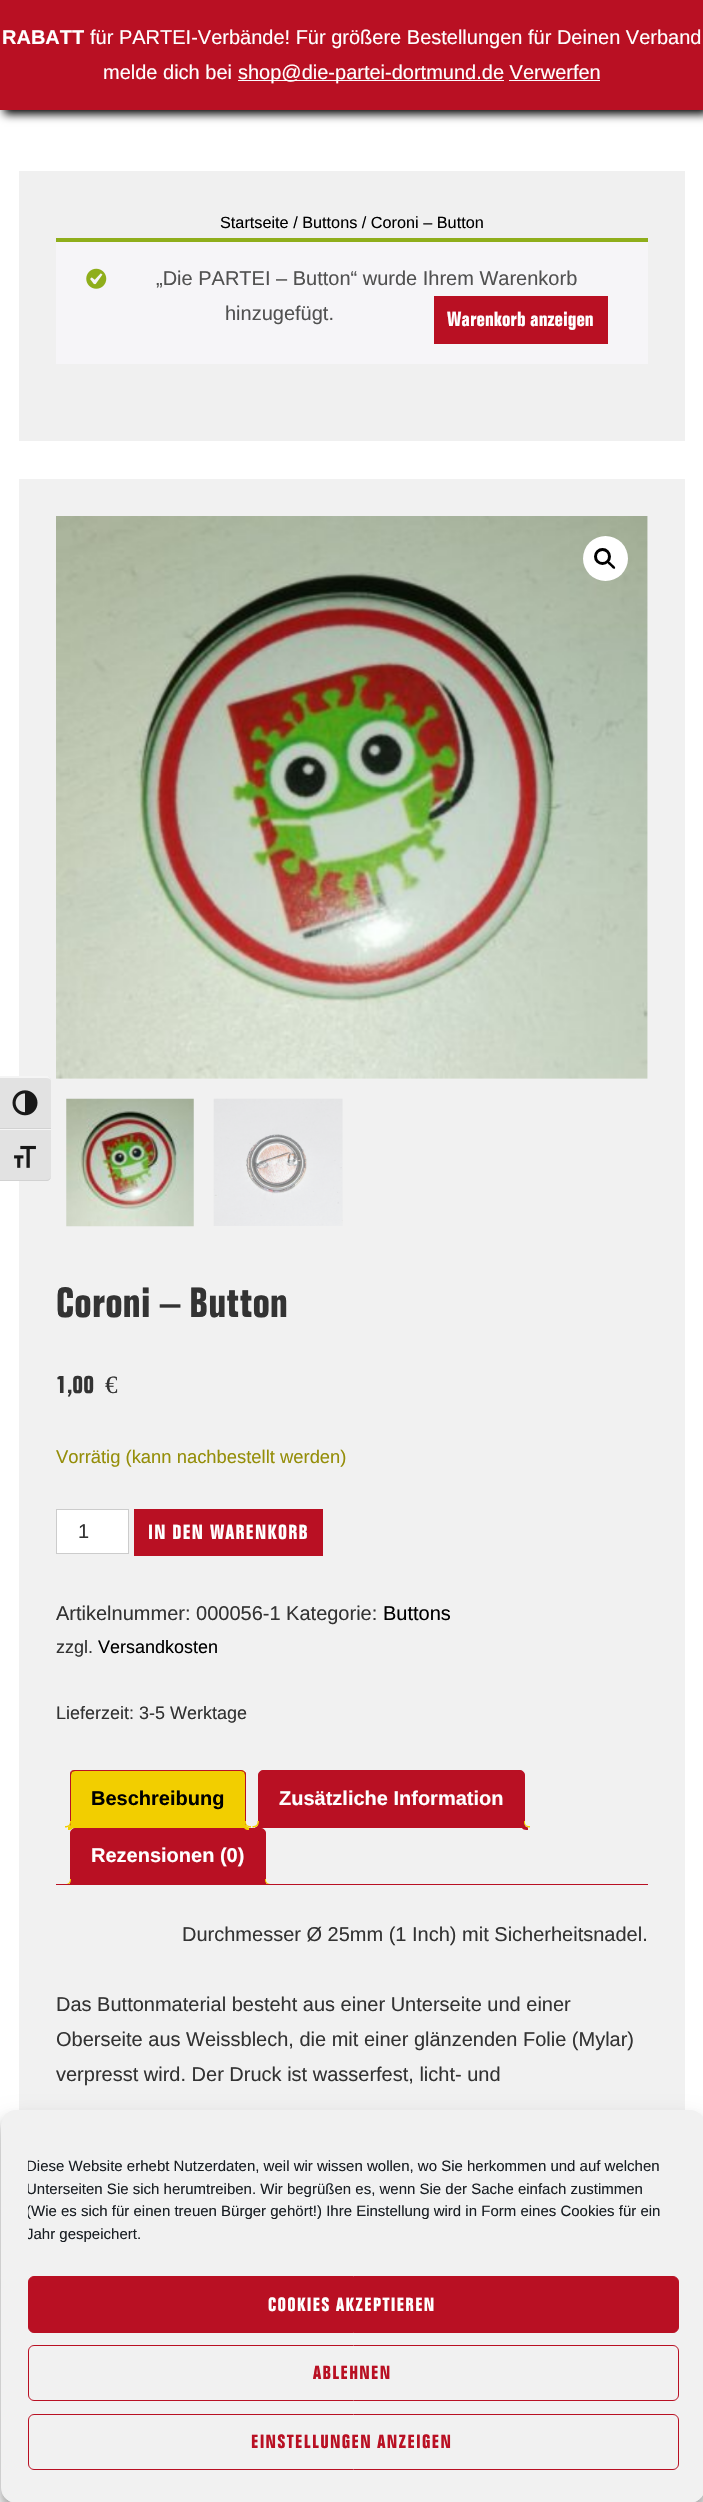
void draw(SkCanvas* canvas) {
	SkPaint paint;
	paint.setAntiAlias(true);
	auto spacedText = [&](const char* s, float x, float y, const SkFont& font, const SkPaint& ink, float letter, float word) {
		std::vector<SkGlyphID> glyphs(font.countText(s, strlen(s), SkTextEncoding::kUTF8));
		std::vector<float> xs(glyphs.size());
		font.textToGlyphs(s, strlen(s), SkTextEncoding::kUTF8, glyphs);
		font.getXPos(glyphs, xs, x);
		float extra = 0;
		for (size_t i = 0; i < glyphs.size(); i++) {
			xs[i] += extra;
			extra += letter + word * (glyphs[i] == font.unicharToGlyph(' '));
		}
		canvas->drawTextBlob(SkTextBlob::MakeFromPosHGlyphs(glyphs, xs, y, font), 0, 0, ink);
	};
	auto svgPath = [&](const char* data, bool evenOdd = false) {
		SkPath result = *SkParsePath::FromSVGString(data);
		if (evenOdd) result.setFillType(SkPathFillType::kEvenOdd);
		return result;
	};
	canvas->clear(0xffffffff);
	paint.setColor(0xff000000);
	paint.setMaskFilter(SkMaskFilter::MakeBlur(kNormal_SkBlurStyle, 4.5));
	canvas->drawRect(SkRect::MakeXYWH(4, 4, 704, 110), paint);
	paint.setMaskFilter(nullptr);
	paint.setColor(0xffb91023);
	canvas->drawRect(SkRect::MakeXYWH(0, 0, 703, 110), paint);
	SkFont f1(fontMgr->matchFamilyStyle("Liberation Sans", SkFontStyle::Bold()), 20);
	f1.setSubpixel(true);
	paint.setColor(0xffffffff);
	canvas->drawString("RABATT", 2, 44, f1, paint);
	SkFont f2(fontMgr->matchFamilyStyle("Liberation Sans", SkFontStyle::Normal()), 20);
	f2.setSubpixel(true);
	canvas->drawString("für PARTEI-Verbände! Für größere Bestellungen für Deinen Verband", 90, 44, f2, paint);
	canvas->drawString("melde dich bei", 103, 79, f2, paint);
	paint.setColor(0xfffcfbfe);
	canvas->drawRect(SkRect::MakeXYWH(238, 80, 266, 1), paint);
	paint.setColor(0xffffffff);
	canvas->drawString("shop@die-partei-dortmund.de Verwerfen", 238, 79, f2, paint);
	paint.setColor(0xfffcfbfe);
	canvas->drawRect(SkRect::MakeXYWH(509, 80, 91, 1), paint);
	paint.setColor(0xfff1f1f1);
	canvas->drawRect(SkRect::MakeXYWH(19, 479, 666, 1631), paint);
	paint.setColor(0xffe2e2e2);
	canvas->drawPath(svgPath("M0 1076H46C49 1076 51 1078 51 1081V1129H0Z"), paint);
	paint.setColor(0xfff5f5f5);
	canvas->drawPath(svgPath("M0 1078H46C49 1078 51 1079 51 1081C51 1079 50 1077 48 1076H0Z"), paint);
	paint.setColor(0xffd2d2d2);
	canvas->drawRect(SkRect::MakeXYWH(0, 1128, 51, 1), paint);
	canvas->drawImageRect(SkImages::DeferredFromEncodedData(SkData::MakeFromFileName("img1.png")), SkRect::MakeXYWH(12, 1090, 26, 26), SkSamplingOptions());
	paint.setColor(0xffe2e2e2);
	canvas->drawPath(svgPath("M0 1129H51V1176C51 1179 49 1181 46 1181H0Z"), paint);
	paint.setColor(0xfff5f5f5);
	canvas->drawRect(SkRect::MakeXYWH(0, 1129, 51, 1), paint);
	paint.setColor(0xffd2d2d2);
	canvas->drawPath(svgPath("M46 1181C49 1181 51 1179 51 1176C51 1178 49 1180 46 1180H0V1181Z"), paint);
	canvas->drawImageRect(SkImages::DeferredFromEncodedData(SkData::MakeFromFileName("img2.png")), SkRect::MakeXYWH(14, 1145, 22, 23), SkSamplingOptions());
	paint.setColor(0xfff0f0f0);
	canvas->drawRect(SkRect::MakeXYWH(19, 171, 666, 270), paint);
	SkFont f3(fontMgr->matchFamilyStyle("Liberation Sans", SkFontStyle::Normal()), 16.25);
	f3.setSubpixel(true);
	paint.setColor(0xff000000);
	canvas->drawString("Startseite / Buttons / Coroni – Button", 220, 228, f3, paint);
	paint.setColor(0xfff6f5f8);
	canvas->drawRect(SkRect::MakeXYWH(56, 242, 592, 122), paint);
	paint.setColor(0xff8fae1b);
	canvas->drawRect(SkRect::MakeXYWH(56, 238, 592, 4), paint);
	canvas->drawImageRect(SkImages::DeferredFromEncodedData(SkData::MakeFromFileName("img3.png")), SkRect::MakeXYWH(86, 268, 21, 21), SkSamplingOptions());
	paint.setColor(0xff515151);
	canvas->drawString("„Die PARTEI – Button“ wurde Ihrem Warenkorb", 156, 285, f2, paint);
	canvas->drawString("hinzugefügt.", 225, 320, f2, paint);
	paint.setColor(0xffb91023);
	canvas->drawRect(SkRect::MakeXYWH(434, 296, 174, 48), paint);
	SkFont f4(fontMgr->matchFamilyStyle("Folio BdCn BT", SkFontStyle::Bold()), 20);
	f4.setSubpixel(true);
	paint.setColor(0xffffffff);
	canvas->drawString("Warenkorb anzeigen", 447, 326, f4, paint);
	canvas->drawImageRect(SkImages::DeferredFromEncodedData(SkData::MakeFromFileName("img4.png")), SkRect::MakeXYWH(56, 516, 592, 563), SkSamplingOptions());
	canvas->drawCircle(605.5, 558.5, 22.5, paint);
	paint.setStroke(true);
	paint.setStrokeWidth(3);
	paint.setColor(0xff000000);
	canvas->drawCircle(602.5, 556.5, 7, paint);
	paint.setStroke(false);
	canvas->drawPath(svgPath("M607.5 561.5C609 560 611.5 563.5 612 564C613 565 616 567 615 568.5C613.5 570 611 566.5 610.5 566C609.5 565 606.5 563 607.5 561.5Z"), paint);
	canvas->drawImageRect(SkImages::DeferredFromEncodedData(SkData::MakeFromFileName("img5.png")), SkRect::MakeXYWH(66, 1098, 128, 129), SkSamplingOptions());
	canvas->drawImageRect(SkImages::DeferredFromEncodedData(SkData::MakeFromFileName("img6.png")), SkRect::MakeXYWH(213, 1098, 130, 128), SkSamplingOptions());
	SkFont f5(fontMgr->matchFamilyStyle("Folio BdCn BT", SkFontStyle::Bold()), 41.25);
	f5.setSubpixel(true);
	paint.setColor(0xff333333);
	canvas->drawString("Coroni – Button", 56, 1317, f5, paint);
	SkFont f6(fontMgr->matchFamilyStyle("Folio BdCn BT", SkFontStyle::Bold()), 25);
	f6.setSubpixel(true);
	canvas->drawString("1,00", 56, 1393, f6, paint);
	SkFont f7(fontMgr->matchFamilyStyle("Liberation Serif", SkFontStyle::Normal()), 25);
	f7.setSubpixel(true);
	canvas->drawString("€", 105, 1393, f7, paint);
	SkFont f8(fontMgr->matchFamilyStyle("Liberation Sans", SkFontStyle::Normal()), 18.4);
	f8.setSubpixel(true);
	paint.setColor(0xff958e09);
	canvas->drawString("Vorrätig (kann nachbestellt werden)", 56, 1463, f8, paint);
	paint.setColor(0xffffffff);
	canvas->drawRect(SkRect::MakeXYWH(56.5, 1509.5, 72, 44), paint);
	paint.setStroke(true);
	paint.setStrokeWidth(1);
	paint.setColor(0xffcccccc);
	canvas->drawRect(SkRect::MakeXYWH(56.5, 1509.5, 72, 44), paint);
	paint.setStroke(false);
	paint.setColor(0xff333333);
	canvas->drawString("1", 78, 1538, f2, paint);
	paint.setColor(0xffb91023);
	canvas->drawRect(SkRect::MakeXYWH(134, 1509, 189, 47), paint);
	paint.setColor(0xffffffff);
	spacedText("IN DEN WARENKORB", 148, 1539, f4, paint, 1.25, 0);
	paint.setColor(0xff333333);
	canvas->drawString("Artikelnummer: 000056-1 Kategorie:", 56, 1620, f2, paint);
	paint.setColor(0xff000000);
	canvas->drawString("Buttons", 383, 1620, f2, paint);
	SkFont f9(fontMgr->matchFamilyStyle("Liberation Sans", SkFontStyle::Normal()), 18);
	f9.setSubpixel(true);
	paint.setColor(0xff333333);
	canvas->drawString("zzgl.", 56, 1653, f9, paint);
	paint.setColor(0xff000000);
	canvas->drawString("Versandkosten", 98, 1653, f9, paint);
	paint.setColor(0xff333333);
	canvas->drawString("Lieferzeit: 3-5 Werktage", 56, 1719, f9, paint);
	paint.setColor(0xfff2ce00);
	canvas->drawPath(svgPath("M75 1770H241C244 1770 246 1772 246 1775V1828H70V1775C70 1772 72 1770 75 1770Z"), paint);
	paint.setColor(0xffb91023);
	canvas->drawPath(svgPath("M75 1770C74 1770 72 1770 71 1771L72 1772L75 1771H241L244 1772H245C244 1771 243 1770 241 1770Z"), paint);
	canvas->drawPath(svgPath("M245 1772C246 1772 246 1774 246 1775V1827L245 1826V1775L244 1772Z"), paint);
	paint.setColor(0xfff2ce00);
	canvas->drawPath(svgPath("M246 1828H70L72 1826H245Z"), paint);
	paint.setColor(0xffb91023);
	canvas->drawPath(svgPath("M70 1828L72 1826H71V1775L72 1772L71 1771C70 1772 70 1774 70 1775Z"), paint);
	paint.setColor(0xff000000);
	canvas->drawString("Beschreibung", 91, 1805, f1, paint);
	paint.setColor(0xffb91023);
	canvas->drawPath(svgPath("M263 1770.5H520C522.5 1770.5 524.5 1772.5 524.5 1775V1827.5H258.5V1775C258.5 1772.5 260.5 1770.5 263 1770.5Z"), paint);
	paint.setStroke(true);
	canvas->drawPath(svgPath("M263 1770.5H520C522.5 1770.5 524.5 1772.5 524.5 1775V1827.5H258.5V1775C258.5 1772.5 260.5 1770.5 263 1770.5Z"), paint);
	paint.setStroke(false);
	canvas->drawPath(svgPath("M255 1827.5V1830C259 1830 261 1828 261 1824H258.5C258 1825.5 256.5 1827 255 1827.5Z"), paint);
	canvas->drawPath(svgPath("M75 1828.5H261C263.5 1828.5 265.5 1830.5 265.5 1833V1884.5H70.5V1833C70.5 1830.5 72.5 1828.5 75 1828.5Z"), paint);
	paint.setStroke(true);
	canvas->drawPath(svgPath("M75 1828.5H261C263.5 1828.5 265.5 1830.5 265.5 1833V1884.5H70.5V1833C70.5 1830.5 72.5 1828.5 75 1828.5Z"), paint);
	paint.setStroke(false);
	paint.setColor(0xfff2ce00);
	canvas->drawPath(svgPath("M68 1827V1830C72 1830 74 1828 74 1824H71C70.5 1825.5 69.5 1826.5 68 1827Z"), paint);
	canvas->drawPath(svgPath("M65 1821H71C71 1825.5 69.5 1827.5 65 1827.5ZM65 1821H70C70 1825 68.5 1826 65 1826Z", true), paint);
	canvas->drawPath(svgPath("M243 1824C243 1828 245 1830 249 1830V1827.5C247 1827 246 1825.5 245 1824Z"), paint);
	canvas->drawPath(svgPath("M245 1821H251V1827.5C248 1827.5 245 1826 245 1822.5ZM246 1821H251V1826C249 1826 246 1825.5 246 1822.5Z", true), paint);
	paint.setColor(0xffffffff);
	canvas->drawString("Zusätzliche Information", 279, 1805, f1, paint);
	paint.setColor(0xfff2ce00);
	canvas->drawPath(svgPath("M252.5 1821H259C259 1825.5 257 1827.5 252.5 1827.5ZM252.5 1821H257.5C257.5 1825 256 1826 252.5 1826Z", true), paint);
	paint.setColor(0xffb91023);
	canvas->drawPath(svgPath("M521 1824C521 1829 523.5 1830 528 1830V1827.5C526 1827 524.5 1826 524 1824Z"), paint);
	paint.setColor(0xfff2ce00);
	canvas->drawPath(svgPath("M524 1821H530V1827.5C527 1827.5 524 1826 524 1822.5ZM525 1821H530V1826C527.5 1826 525 1825.5 525 1822.5Z", true), paint);
	paint.setColor(0xffffffff);
	canvas->drawString("Rezensionen (0)", 91, 1862, f1, paint);
	canvas->save();
	canvas->clipRect(SkRect::MakeXYWH(56, 1770, 592, 115));
	paint.setColor(0xffb91023);
	canvas->drawPath(svgPath("M68 1884.5V1888C73 1888 74 1885.5 74 1881H71C71 1882.5 69.5 1884 68 1884.5Z"), paint);
	canvas->restore();
	paint.setColor(0xfff2ce00);
	canvas->drawPath(svgPath("M65 1879H71C71 1883 69.5 1885 65 1885ZM65 1879H70C70 1882.5 68.5 1884 65 1884Z", true), paint);
	canvas->save();
	canvas->clipRect(SkRect::MakeXYWH(56, 1770, 592, 115));
	paint.setColor(0xffb91023);
	canvas->drawPath(svgPath("M263 1881C263 1885.5 264 1888 269 1888V1885C267 1884.5 265.5 1883 265 1881Z"), paint);
	canvas->restore();
	paint.setColor(0xfff2ce00);
	canvas->drawPath(svgPath("M265 1879H271V1885C268 1885 265 1883.5 265 1880ZM266 1879H271V1884C269 1884 266 1883 266 1880Z", true), paint);
	paint.setColor(0xffb91023);
	canvas->drawRect(SkRect::MakeXYWH(56, 1884, 592, 1), paint);
	paint.setColor(0xff333333);
	canvas->drawString("Durchmesser Ø 25mm (1 Inch) mit Sicherheitsnadel.", 182, 1941, f2, paint);
	canvas->drawString("Das Buttonmaterial besteht aus einer Unterseite und einer", 56, 2011, f2, paint);
	canvas->drawString("Oberseite aus Weissblech, die mit einer glänzenden Folie (Mylar)", 56, 2046, f2, paint);
	canvas->drawString("verpresst wird. Der Druck ist wasserfest, licht- und", 56, 2081, f2, paint);
	paint.setColor(0x3b000000);
	paint.setMaskFilter(SkMaskFilter::MakeBlur(kNormal_SkBlurStyle, 4));
	canvas->drawRoundRect(SkRect::MakeXYWH(1, 2118, 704, 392), 15, 15, paint);
	paint.setMaskFilter(nullptr);
	paint.setColor(0x30000000);
	paint.setMaskFilter(SkMaskFilter::MakeBlur(kNormal_SkBlurStyle, 12.5));
	canvas->drawRoundRect(SkRect::MakeXYWH(1, 2123, 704, 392), 15, 15, paint);
	paint.setMaskFilter(nullptr);
	paint.setColor(0xfff1f1f1);
	canvas->drawRoundRect(SkRect::MakeXYWH(1.5, 2110.5, 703, 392), 14.5, 14.5, paint);
	paint.setStroke(true);
	canvas->drawRoundRect(SkRect::MakeXYWH(1.5, 2110.5, 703, 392), 14.5, 14.5, paint);
	canvas->save();
	canvas->clipRect(SkRect::MakeXYWH(28, 2155, 651, 96));
	SkFont f10(fontMgr->matchFamilyStyle("Liberation Sans", SkFontStyle::Normal()), 15);
	f10.setSubpixel(true);
	paint.setStroke(false);
	paint.setColor(0xff191e23);
	canvas->drawString("Diese Website erhebt Nutzerdaten, weil wir wissen wollen, wo Sie herkommen und auf welchen", 26, 2171, f10, paint);
	canvas->drawString("Unterseiten Sie sich herumtreiben. Wir begrüßen es, wenn Sie der Sache einfach zustimmen", 26, 2194, f10, paint);
	canvas->drawString("(Wie es sich für einen treuen Bürger gehört!) Ihre Einstellung wird in Form eines Cookies für ein", 26, 2216, f10, paint);
	canvas->drawString("Jahr gespeichert.", 26, 2239, f10, paint);
	canvas->restore();
	paint.setColor(0xffb91023);
	canvas->drawRoundRect(SkRect::MakeXYWH(28.5, 2276.5, 650, 56), 5.5, 5.5, paint);
	paint.setStroke(true);
	canvas->drawRoundRect(SkRect::MakeXYWH(28.5, 2276.5, 650, 56), 5.5, 5.5, paint);
	SkFont f11(fontMgr->matchFamilyStyle("Folio BdCn BT", SkFontStyle::Bold()), 18.75);
	f11.setSubpixel(true);
	paint.setStroke(false);
	paint.setColor(0xffffffff);
	spacedText("COOKIES AKZEPTIEREN", 268, 2311, f11, paint, 1.25, 0);
	paint.setStroke(true);
	paint.setColor(0xffb91023);
	canvas->drawRoundRect(SkRect::MakeXYWH(28.5, 2345.5, 650, 55), 5.5, 5.5, paint);
	paint.setStroke(false);
	spacedText("ABLEHNEN", 313, 2379, f11, paint, 1.25, 0);
	paint.setStroke(true);
	canvas->drawRoundRect(SkRect::MakeXYWH(28.5, 2414.5, 650, 55), 5.5, 5.5, paint);
	paint.setStroke(false);
	spacedText("EINSTELLUNGEN ANZEIGEN", 251, 2448, f11, paint, 1.25, 0);
}
